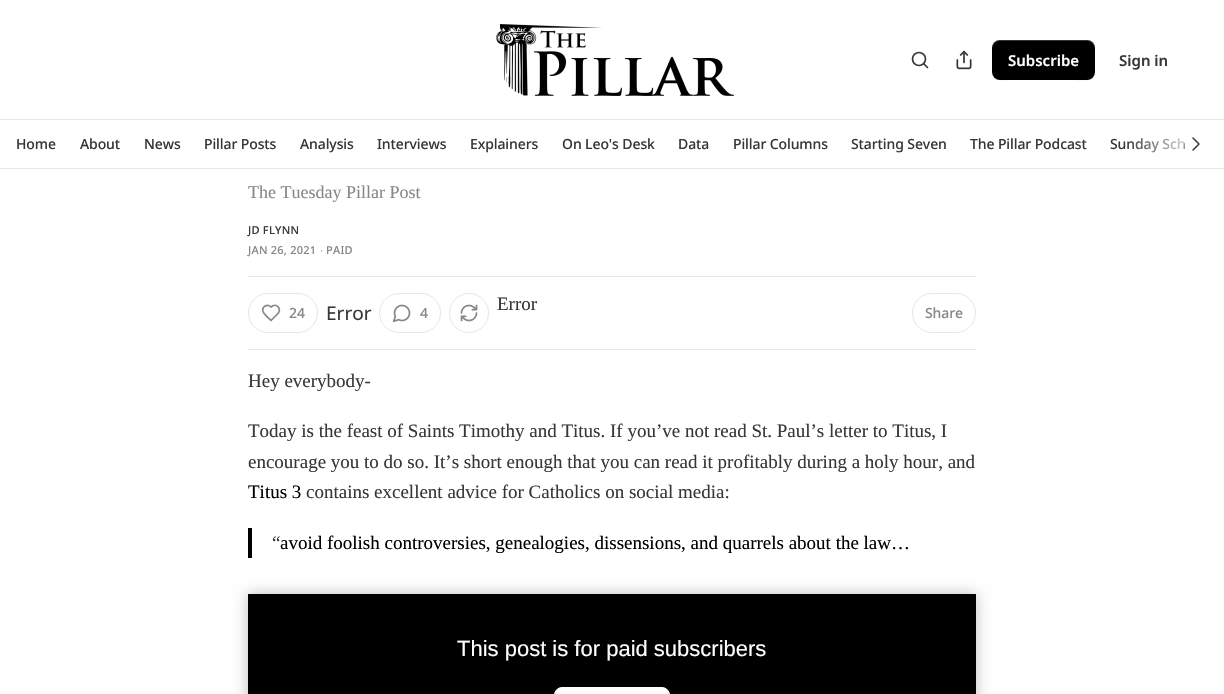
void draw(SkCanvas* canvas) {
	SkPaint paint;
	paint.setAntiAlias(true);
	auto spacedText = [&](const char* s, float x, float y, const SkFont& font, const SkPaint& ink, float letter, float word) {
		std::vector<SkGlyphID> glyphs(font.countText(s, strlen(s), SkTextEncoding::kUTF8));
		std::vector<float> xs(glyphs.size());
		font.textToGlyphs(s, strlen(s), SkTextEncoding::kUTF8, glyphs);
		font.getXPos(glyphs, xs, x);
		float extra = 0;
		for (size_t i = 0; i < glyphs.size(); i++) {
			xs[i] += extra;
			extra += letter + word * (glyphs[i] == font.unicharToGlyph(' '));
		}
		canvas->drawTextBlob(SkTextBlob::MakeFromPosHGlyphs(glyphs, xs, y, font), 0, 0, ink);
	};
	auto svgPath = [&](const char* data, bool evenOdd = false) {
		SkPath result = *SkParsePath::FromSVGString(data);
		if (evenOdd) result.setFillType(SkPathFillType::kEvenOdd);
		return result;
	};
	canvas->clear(0xffffffff);
	canvas->drawImageRect(SkImages::DeferredFromEncodedData(SkData::MakeFromFileName("img1.png")), SkRect::MakeXYWH(496, 24, 238, 72), SkSamplingOptions());
	paint.setStroke(true);
	paint.setStrokeWidth(1.7);
	paint.setColor(0xff363737);
	canvas->drawCircle(919, 59, 6.5, paint);
	paint.setStrokeCap(SkPaint::kRound_Cap);
	paint.setStrokeJoin(SkPaint::kRound_Join);
	canvas->drawPath(svgPath("M927.5 67.5L924 64"), paint);
	canvas->drawImageRect(SkImages::DeferredFromEncodedData(SkData::MakeFromFileName("img2.png")), SkRect::MakeXYWH(956, 50, 16, 20), SkSamplingOptions());
	paint.setStroke(false);
	paint.setColor(0xff000000);
	canvas->drawRoundRect(SkRect::MakeXYWH(992, 40, 103, 40), 8, 8, paint);
	paint.setColor(0x1a000000);
	canvas->drawPath(svgPath("M992 71C992 83 1006 80 1014 80H1072C1081 80 1095 83 1095 71C1095 75 1091 79 1087 79H1000C996 79 992 75 992 71Z"), paint);
	paint.setColor(0x33ffffff);
	canvas->drawPath(svgPath("M1000 41H1087C1091 41 1095 45 1095 49C1095 37 1081 40 1072 40H1014C1006 40 992 37 992 49C992 45 996 41 1000 41Z"), paint);
	SkFont f1(fontMgr->matchFamilyStyle("Noto Sans", SkFontStyle(600, SkFontStyle::kNormal_Width, SkFontStyle::kUpright_Slant)), 15);
	f1.setSubpixel(true);
	paint.setColor(0xffffffff);
	canvas->drawString("Subscribe", 1008, 66, f1, paint);
	paint.setColor(0xff363737);
	canvas->drawString("Sign in", 1119, 66, f1, paint);
	paint.setColor(0xffe6e6e6);
	canvas->drawRect(SkRect::MakeXYWH(0, 119, 1224, 1), paint);
	canvas->drawRect(SkRect::MakeXYWH(0, 168, 1224, 1), paint);
	SkFont f2(fontMgr->matchFamilyStyle("Noto Sans", SkFontStyle(500, SkFontStyle::kNormal_Width, SkFontStyle::kUpright_Slant)), 14);
	f2.setSubpixel(true);
	paint.setColor(0xff363737);
	spacedText("Sunday Sch", 1110, 149, f2, paint, -0.1, 0);
	{
		const SkColor colors[] = {0xffffffff, 0x00ffffff};
		const float stops[] = {0.2, 1};
		const SkPoint ends[] = {{1224, 144}, {1124, 144}};
		paint.setShader(SkGradientShader::MakeLinear(ends, colors, stops, 2, SkTileMode::kClamp));
		paint.setAlpha(255);
	}
	canvas->drawRect(SkRect::MakeXYWH(1127, 138, 57, 15), paint);
	paint.setStroke(true);
	paint.setStrokeWidth(1.5);
	paint.setShader(nullptr);
	paint.setColor(0xff363737);
	canvas->drawPath(svgPath("M1193 150L1199 144L1193 138"), paint);
	paint.setStroke(false);
	spacedText("Home", 16, 149, f2, paint, -0.1, 0);
	spacedText("About", 80, 149, f2, paint, -0.1, 0);
	spacedText("News", 144, 149, f2, paint, -0.1, 0);
	spacedText("Pillar Posts", 204, 149, f2, paint, -0.1, 0);
	spacedText("Analysis", 300, 149, f2, paint, -0.1, 0);
	spacedText("Interviews", 377, 149, f2, paint, -0.1, 0);
	spacedText("Explainers", 470, 149, f2, paint, -0.1, 0);
	spacedText("On Leo's Desk", 562, 149, f2, paint, -0.1, 0);
	spacedText("Data", 678, 149, f2, paint, -0.1, 0);
	spacedText("Pillar Columns", 733, 149, f2, paint, -0.1, 0);
	spacedText("Starting Seven", 851, 149, f2, paint, -0.1, 0);
	spacedText("The Pillar Podcast", 970, 149, f2, paint, -0.1, 0);
	SkFont f3(fontMgr->matchFamilyStyle("Liberation Serif", SkFontStyle::Normal()), 18);
	f3.setSubpixel(true);
	paint.setColor(0xff868787);
	canvas->drawString("The Tuesday Pillar Post", 248, 198, f3, paint);
	SkFont f4(fontMgr->matchFamilyStyle("Noto Sans", SkFontStyle(500, SkFontStyle::kNormal_Width, SkFontStyle::kUpright_Slant)), 11);
	f4.setSubpixel(true);
	paint.setColor(0xff363737);
	spacedText("JD FLYNN", 248, 234, f4, paint, 0.25, 0);
	paint.setColor(0xff868787);
	spacedText("JAN 26, 2021", 248, 254, f4, paint, 0.25, 0);
	SkFont f5(fontMgr->matchFamilyStyle("Liberation Sans", SkFontStyle::Normal()), 11);
	f5.setSubpixel(true);
	spacedText("∙", 320, 254, f5, paint, 0.25, 0);
	spacedText("PAID", 326, 254, f4, paint, 0.25, 0);
	paint.setColor(0xffe6e6e6);
	canvas->drawRect(SkRect::MakeXYWH(248, 276, 728, 1), paint);
	canvas->drawRect(SkRect::MakeXYWH(248, 349, 728, 1), paint);
	paint.setStroke(true);
	paint.setStrokeWidth(1);
	paint.setStrokeCap(SkPaint::kButt_Cap);
	paint.setStrokeJoin(SkPaint::kMiter_Join);
	canvas->drawCircle(469, 313, 19.5, paint);
	canvas->drawImageRect(SkImages::DeferredFromEncodedData(SkData::MakeFromFileName("img3.png")), SkRect::MakeXYWH(460, 304, 18, 18), SkSamplingOptions());
	SkFont f6(fontMgr->matchFamilyStyle("Liberation Serif", SkFontStyle::Normal()), 19);
	f6.setSubpixel(true);
	paint.setStroke(false);
	paint.setColor(0xff363737);
	canvas->drawString("Error", 497, 310, f6, paint);
	paint.setStroke(true);
	paint.setColor(0xffe6e6e6);
	canvas->drawRoundRect(SkRect::MakeXYWH(248.5, 293.5, 69, 39), 19.5, 19.5, paint);
	paint.setStrokeWidth(1.7);
	paint.setStrokeCap(SkPaint::kRound_Cap);
	paint.setStrokeJoin(SkPaint::kRound_Join);
	paint.setColor(0xff868787);
	canvas->drawPath(svgPath("M277 314.5C283 308.5 276 302.5 271 307C267.5 303.5 261.5 306.5 263 311.5C264 314.5 269 318.5 271 320.5Z"), paint);
	paint.setStroke(false);
	spacedText("24", 289, 318, f2, paint, -0.1, 0);
	SkFont f7(fontMgr->matchFamilyStyle("Noto Sans", SkFontStyle::Normal()), 19);
	f7.setSubpixel(true);
	paint.setColor(0xff363737);
	canvas->drawString("Error", 326, 320, f7, paint);
	paint.setStroke(true);
	paint.setStrokeWidth(1);
	paint.setStrokeCap(SkPaint::kButt_Cap);
	paint.setStrokeJoin(SkPaint::kMiter_Join);
	paint.setColor(0xffe6e6e6);
	canvas->drawRoundRect(SkRect::MakeXYWH(379.5, 293.5, 61, 39), 19.5, 19.5, paint);
	canvas->drawImageRect(SkImages::DeferredFromEncodedData(SkData::MakeFromFileName("img4.png")), SkRect::MakeXYWH(392, 304, 19, 19), SkSamplingOptions());
	paint.setStroke(false);
	paint.setColor(0xff868787);
	spacedText("4", 420, 318, f2, paint, -0.1, 0);
	paint.setStroke(true);
	paint.setColor(0xffe6e6e6);
	canvas->drawRoundRect(SkRect::MakeXYWH(912.5, 293.5, 63, 39), 19.5, 19.5, paint);
	paint.setStroke(false);
	paint.setColor(0xff868787);
	spacedText("Share", 925, 318, f2, paint, -0.1, 0);
	paint.setColor(0xff363737);
	canvas->drawString("Hey everybody-", 248, 387, f6, paint);
	canvas->drawString("Today is the feast of Saints Timothy and Titus. If you’ve not read St. Paul’s letter to Titus, I", 248, 437, f6, paint);
	canvas->drawString("encourage you to do so. It’s short enough that you can read it profitably during a holy hour, and", 248, 468, f6, paint);
	paint.setColor(0xff000000);
	canvas->drawString("Titus 3", 248, 498, f6, paint);
	paint.setColor(0xff363737);
	canvas->drawString("contains excellent advice for Catholics on social media:", 306, 498, f6, paint);
	paint.setColor(0xff000000);
	canvas->drawRect(SkRect::MakeXYWH(248, 528, 4, 30), paint);
	paint.setColor(0xff363737);
	canvas->drawString("“", 272, 549, f6, paint);
	paint.setColor(0xff000000);
	canvas->drawString("avoid foolish controversies, genealogies, dissensions, and quarrels about the law…", 280, 549, f6, paint);
	canvas->drawRect(SkRect::MakeXYWH(248, 594, 728, 100), paint);
	paint.setColor(0xffffffff);
	canvas->drawRoundRect(SkRect::MakeXYWH(554.5, 687.5, 115, 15), 7.5, 7.5, paint);
	paint.setStroke(true);
	canvas->drawRoundRect(SkRect::MakeXYWH(554.5, 687.5, 115, 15), 7.5, 7.5, paint);
	canvas->save();
	canvas->clipPath(svgPath("M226 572H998V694H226ZM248 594H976V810H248Z", true), true);
	paint.setStroke(false);
	paint.setColor(0x40000000);
	paint.setMaskFilter(SkMaskFilter::MakeBlur(kNormal_SkBlurStyle, 7));
	canvas->drawRect(SkRect::MakeXYWH(248, 594, 728, 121), paint);
	paint.setMaskFilter(nullptr);
	canvas->restore();
	SkFont f8(fontMgr->matchFamilyStyle("Liberation Sans", SkFontStyle::Normal()), 22);
	f8.setSubpixel(true);
	paint.setColor(0xffffffff);
	canvas->drawString("This post is for paid subscribers", 457, 656, f8, paint);
}
